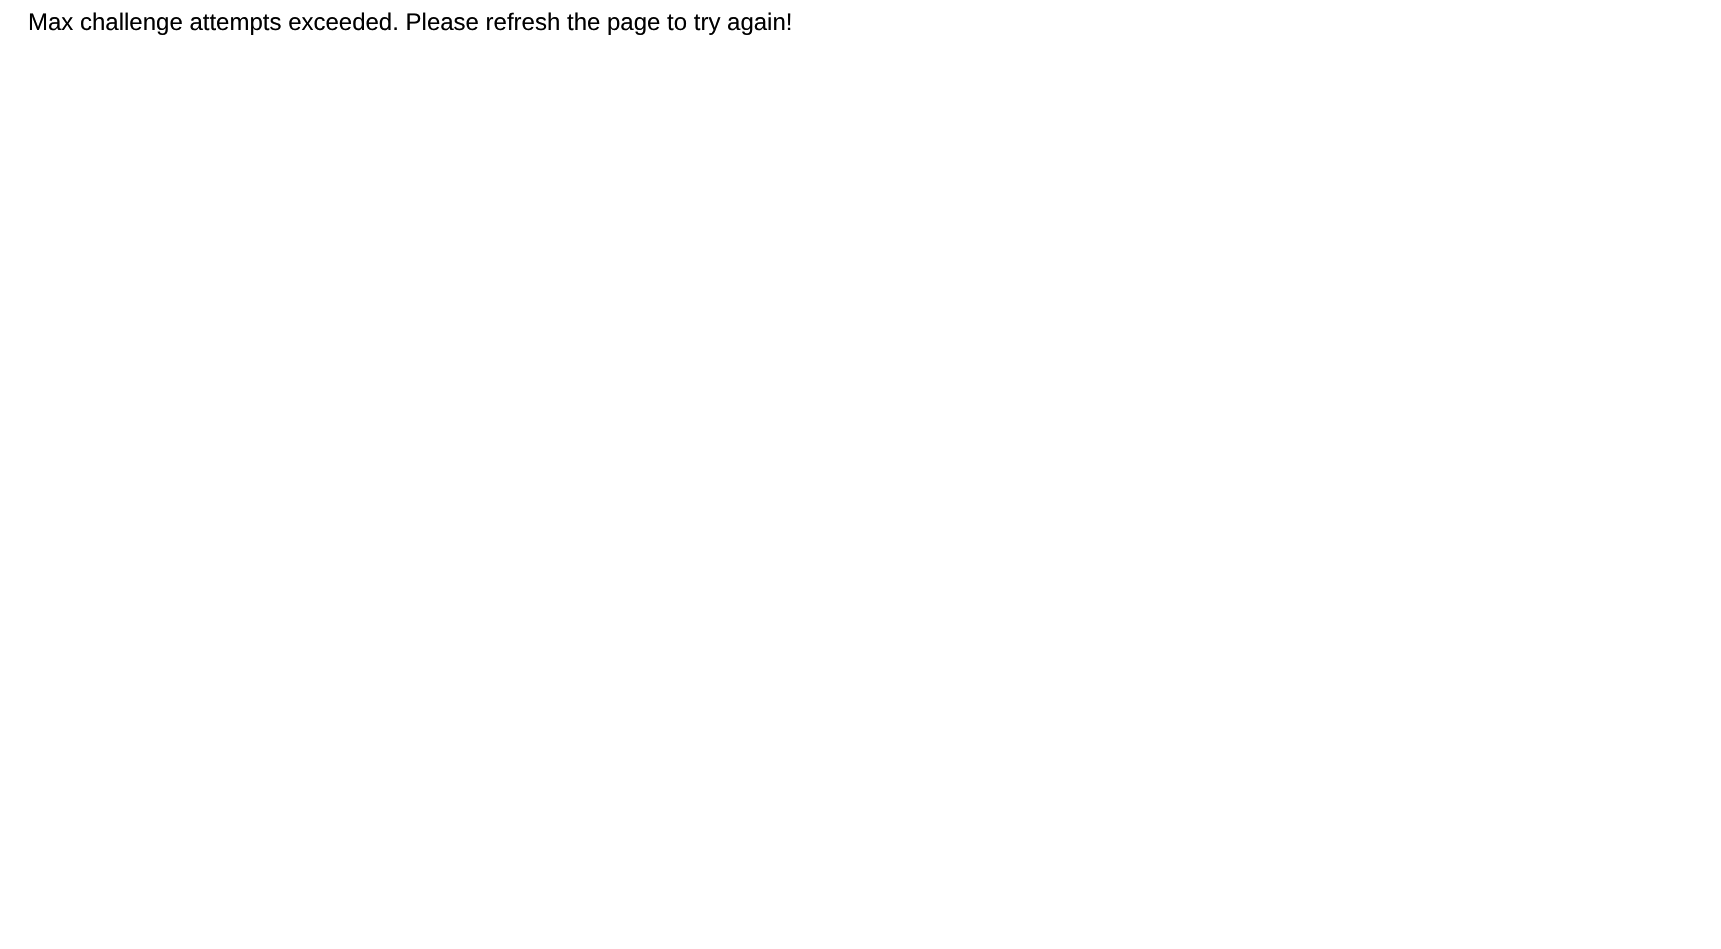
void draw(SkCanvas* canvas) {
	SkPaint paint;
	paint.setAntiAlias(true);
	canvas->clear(0xffffffff);
	SkFont f1(fontMgr->matchFamilyStyle("Liberation Sans", SkFontStyle::Normal()), 24);
	f1.setSubpixel(true);
	paint.setColor(0xff000000);
	canvas->drawString("Max challenge attempts exceeded. Please refresh the page to try again!", 28, 30, f1, paint);
}
